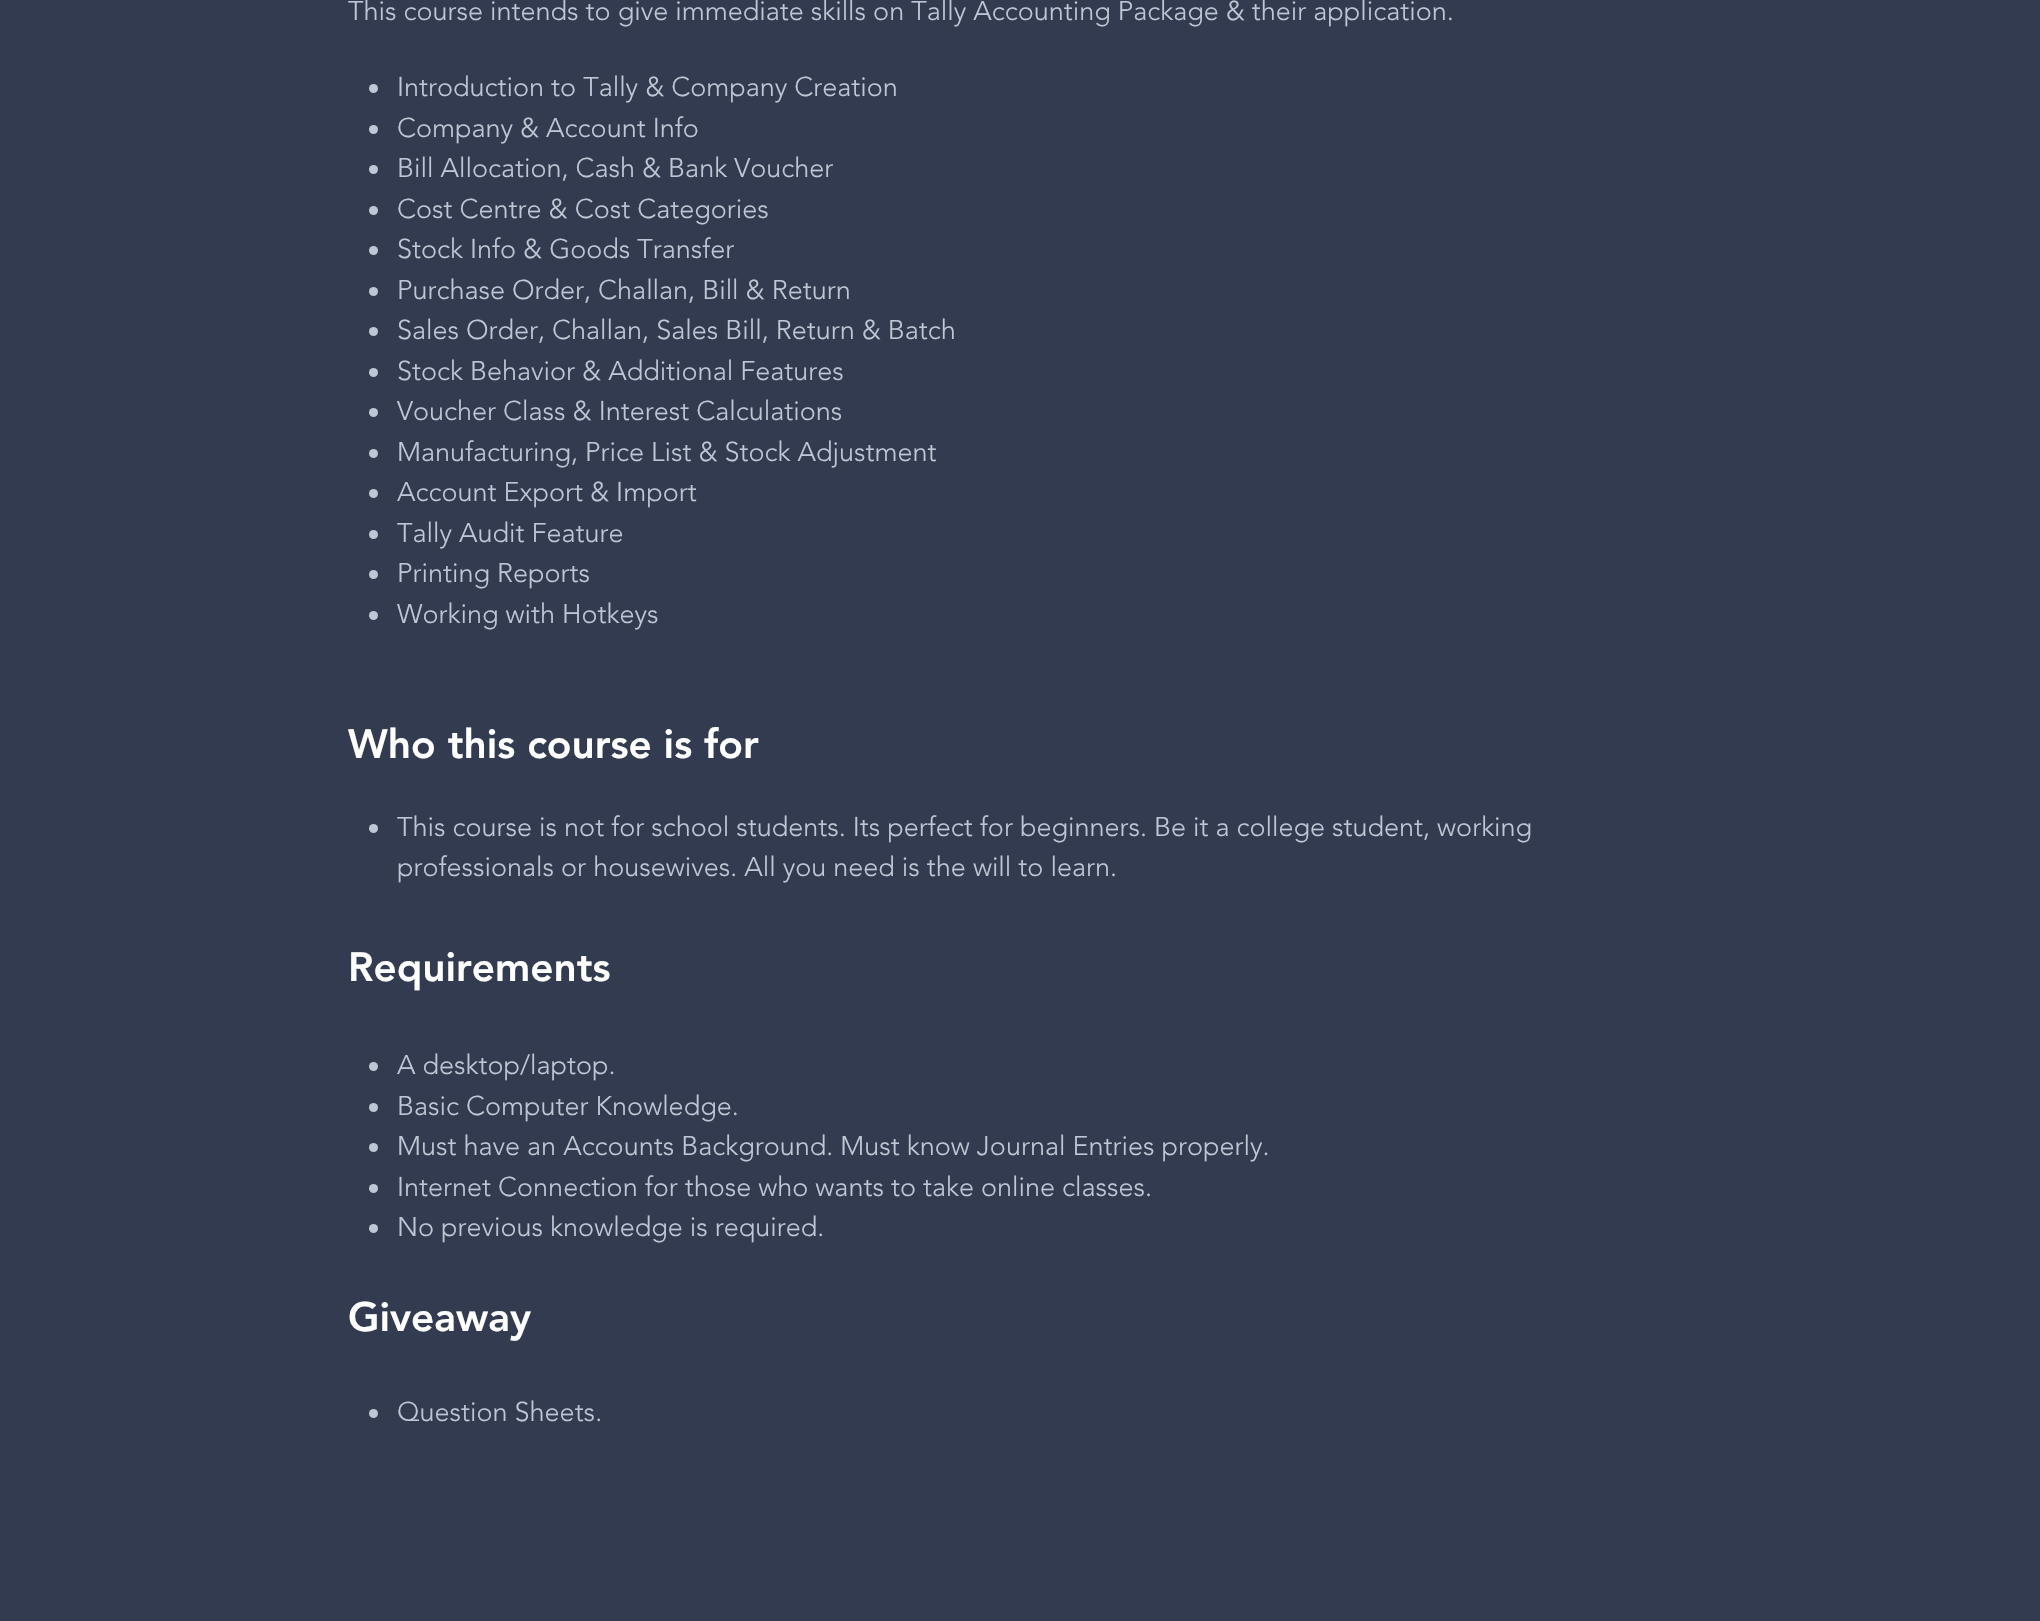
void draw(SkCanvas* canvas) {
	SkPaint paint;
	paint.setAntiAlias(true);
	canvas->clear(0xff333b50);
	SkFont f1(fontMgr->matchFamilyStyle("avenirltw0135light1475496", SkFontStyle(300, SkFontStyle::kNormal_Width, SkFontStyle::kUpright_Slant)), 27);
	f1.setSubpixel(true);
	paint.setColor(0xffbec7d5);
	canvas->drawString("This course intends to give immediate skills on Tally Accounting Package & their application.", 348, 20, f1, paint);
	canvas->drawCircle(373.5, 88.5, 4.5, paint);
	canvas->drawString("Introduction to Tally & Company Creation", 397, 96, f1, paint);
	canvas->drawCircle(373.5, 129.5, 4.5, paint);
	canvas->drawString("Company & Account Info", 397, 137, f1, paint);
	canvas->drawCircle(373.5, 169.5, 4.5, paint);
	canvas->drawString("Bill Allocation, Cash & Bank Voucher", 397, 177, f1, paint);
	canvas->drawCircle(373.5, 210.5, 4.5, paint);
	canvas->drawString("Cost Centre & Cost Categories", 397, 218, f1, paint);
	canvas->drawCircle(373.5, 250.5, 4.5, paint);
	canvas->drawString("Stock Info & Goods Transfer", 397, 258, f1, paint);
	canvas->drawCircle(373.5, 291.5, 4.5, paint);
	canvas->drawString("Purchase Order, Challan, Bill & Return", 397, 299, f1, paint);
	canvas->drawCircle(373.5, 331.5, 4.5, paint);
	canvas->drawString("Sales Order, Challan, Sales Bill, Return & Batch", 397, 339, f1, paint);
	canvas->drawCircle(373.5, 372.5, 4.5, paint);
	canvas->drawString("Stock Behavior & Additional Features", 397, 380, f1, paint);
	canvas->drawCircle(373.5, 412.5, 4.5, paint);
	canvas->drawString("Voucher Class & Interest Calculations", 397, 420, f1, paint);
	canvas->drawCircle(373.5, 453.5, 4.5, paint);
	canvas->drawString("Manufacturing, Price List & Stock Adjustment", 397, 461, f1, paint);
	canvas->drawCircle(373.5, 493.5, 4.5, paint);
	canvas->drawString("Account Export & Import", 397, 501, f1, paint);
	canvas->drawCircle(373.5, 534.5, 4.5, paint);
	canvas->drawString("Tally Audit Feature", 397, 542, f1, paint);
	canvas->drawCircle(373.5, 574.5, 4.5, paint);
	canvas->drawString("Printing Reports", 397, 582, f1, paint);
	canvas->drawCircle(373.5, 615.5, 4.5, paint);
	canvas->drawString("Working with Hotkeys", 397, 623, f1, paint);
	SkFont f2(fontMgr->matchFamilyStyle("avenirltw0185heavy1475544", SkFontStyle(900, SkFontStyle::kNormal_Width, SkFontStyle::kUpright_Slant)), 40.5);
	f2.setSubpixel(true);
	paint.setColor(0xffffffff);
	canvas->drawString("Who this course is for", 348, 758, f2, paint);
	paint.setColor(0xffbec7d5);
	canvas->drawCircle(373.5, 828.5, 4.5, paint);
	canvas->drawString("This course is not for school students. Its perfect for beginners. Be it a college student, working", 397, 836, f1, paint);
	canvas->drawString("professionals or housewives. All you need is the will to learn.", 397, 876, f1, paint);
	paint.setColor(0xffffffff);
	canvas->drawString("Requirements", 348, 981, f2, paint);
	paint.setColor(0xffbec7d5);
	canvas->drawCircle(373.5, 1066.5, 4.5, paint);
	canvas->drawString("A desktop/laptop.", 397, 1074, f1, paint);
	canvas->drawCircle(373.5, 1107.5, 4.5, paint);
	canvas->drawString("Basic Computer Knowledge.", 397, 1115, f1, paint);
	canvas->drawCircle(373.5, 1147.5, 4.5, paint);
	canvas->drawString("Must have an Accounts Background. Must know Journal Entries properly.", 397, 1155, f1, paint);
	canvas->drawCircle(373.5, 1188.5, 4.5, paint);
	canvas->drawString("Internet Connection for those who wants to take online classes.", 397, 1196, f1, paint);
	canvas->drawCircle(373.5, 1228.5, 4.5, paint);
	canvas->drawString("No previous knowledge is required.", 397, 1236, f1, paint);
	paint.setColor(0xffffffff);
	canvas->drawString("Giveaway", 348, 1331, f2, paint);
	paint.setColor(0xffbec7d5);
	canvas->drawCircle(373.5, 1413.5, 4.5, paint);
	canvas->drawString("Question Sheets.", 397, 1421, f1, paint);
}
